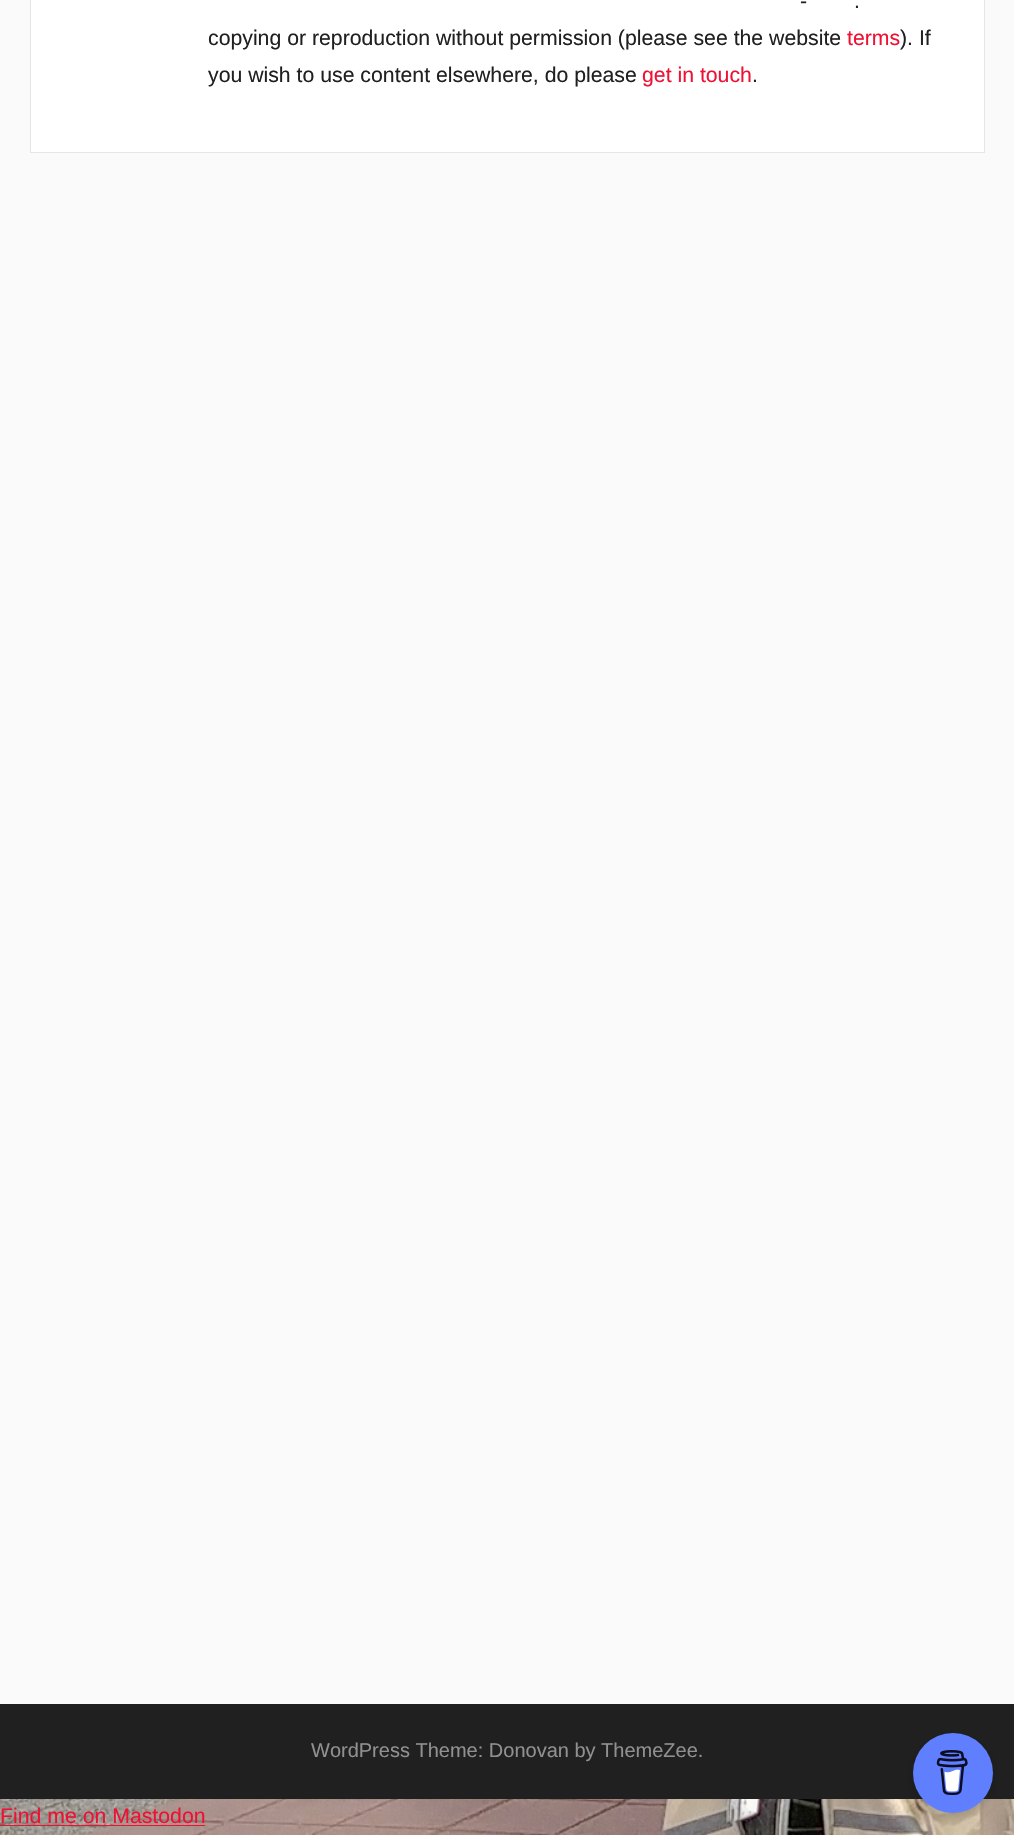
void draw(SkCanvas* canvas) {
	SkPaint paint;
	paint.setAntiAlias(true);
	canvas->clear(0xffffffff);
	canvas->drawImageRect(SkImages::DeferredFromEncodedData(SkData::MakeFromFileName("img1.png")), SkRect::MakeXYWH(0, 1799, 1014, 36), SkSamplingOptions());
	paint.setColor(0xfffafafa);
	canvas->drawRect(SkRect::MakeXYWH(0, 0, 1014, 1704), paint);
	paint.setColor(0xffffffff);
	canvas->drawRect(SkRect::MakeXYWH(30.5, -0.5, 954, 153), paint);
	paint.setStroke(true);
	paint.setStrokeWidth(1);
	paint.setColor(0xffe6e6e6);
	canvas->drawRect(SkRect::MakeXYWH(30.5, -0.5, 954, 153), paint);
	SkFont f1(fontMgr->matchFamilyStyle("Liberation Sans", SkFontStyle::Normal()), 21.25);
	f1.setSubpixel(true);
	paint.setStroke(false);
	paint.setColor(0xff202020);
	canvas->drawString("-", 800, 8, f1, paint);
	canvas->drawString(".", 854, 8, f1, paint);
	canvas->drawString("copying or reproduction without permission (please see the website", 208, 45, f1, paint);
	paint.setColor(0xffee1133);
	canvas->drawString("terms", 847, 45, f1, paint);
	paint.setColor(0xff202020);
	canvas->drawString("). If", 900, 45, f1, paint);
	canvas->drawString("you wish to use content elsewhere, do please", 208, 82, f1, paint);
	paint.setColor(0xffee1133);
	canvas->drawString("get in touch", 642, 82, f1, paint);
	paint.setColor(0xff202020);
	canvas->drawString(".", 752, 82, f1, paint);
	canvas->drawRect(SkRect::MakeXYWH(0, 1704, 1014, 95), paint);
	SkFont f2(fontMgr->matchFamilyStyle("Liberation Sans", SkFontStyle::Normal()), 20);
	f2.setSubpixel(true);
	paint.setColor(0xff909090);
	canvas->drawString("WordPress Theme: Donovan by ThemeZee.", 311, 1757, f2, paint);
	paint.setColor(0xffee1133);
	canvas->drawString("Find me on Mastodon", 0, 1823, f1, paint);
	canvas->drawRect(SkRect::MakeXYWH(0, 1825, 205, 1), paint);
	paint.setColor(0x26000000);
	paint.setMaskFilter(SkMaskFilter::MakeBlur(kNormal_SkBlurStyle, 5));
	canvas->drawRoundRect(SkRect::MakeXYWH(913, 1738, 80, 80), 40, 40, paint);
	paint.setMaskFilter(nullptr);
	paint.setColor(0xff5f7fff);
	canvas->drawCircle(953, 1773, 40, paint);
	canvas->drawImageRect(SkImages::DeferredFromEncodedData(SkData::MakeFromFileName("img2.png")), SkRect::MakeXYWH(936, 1750, 32, 45), SkSamplingOptions());
}
